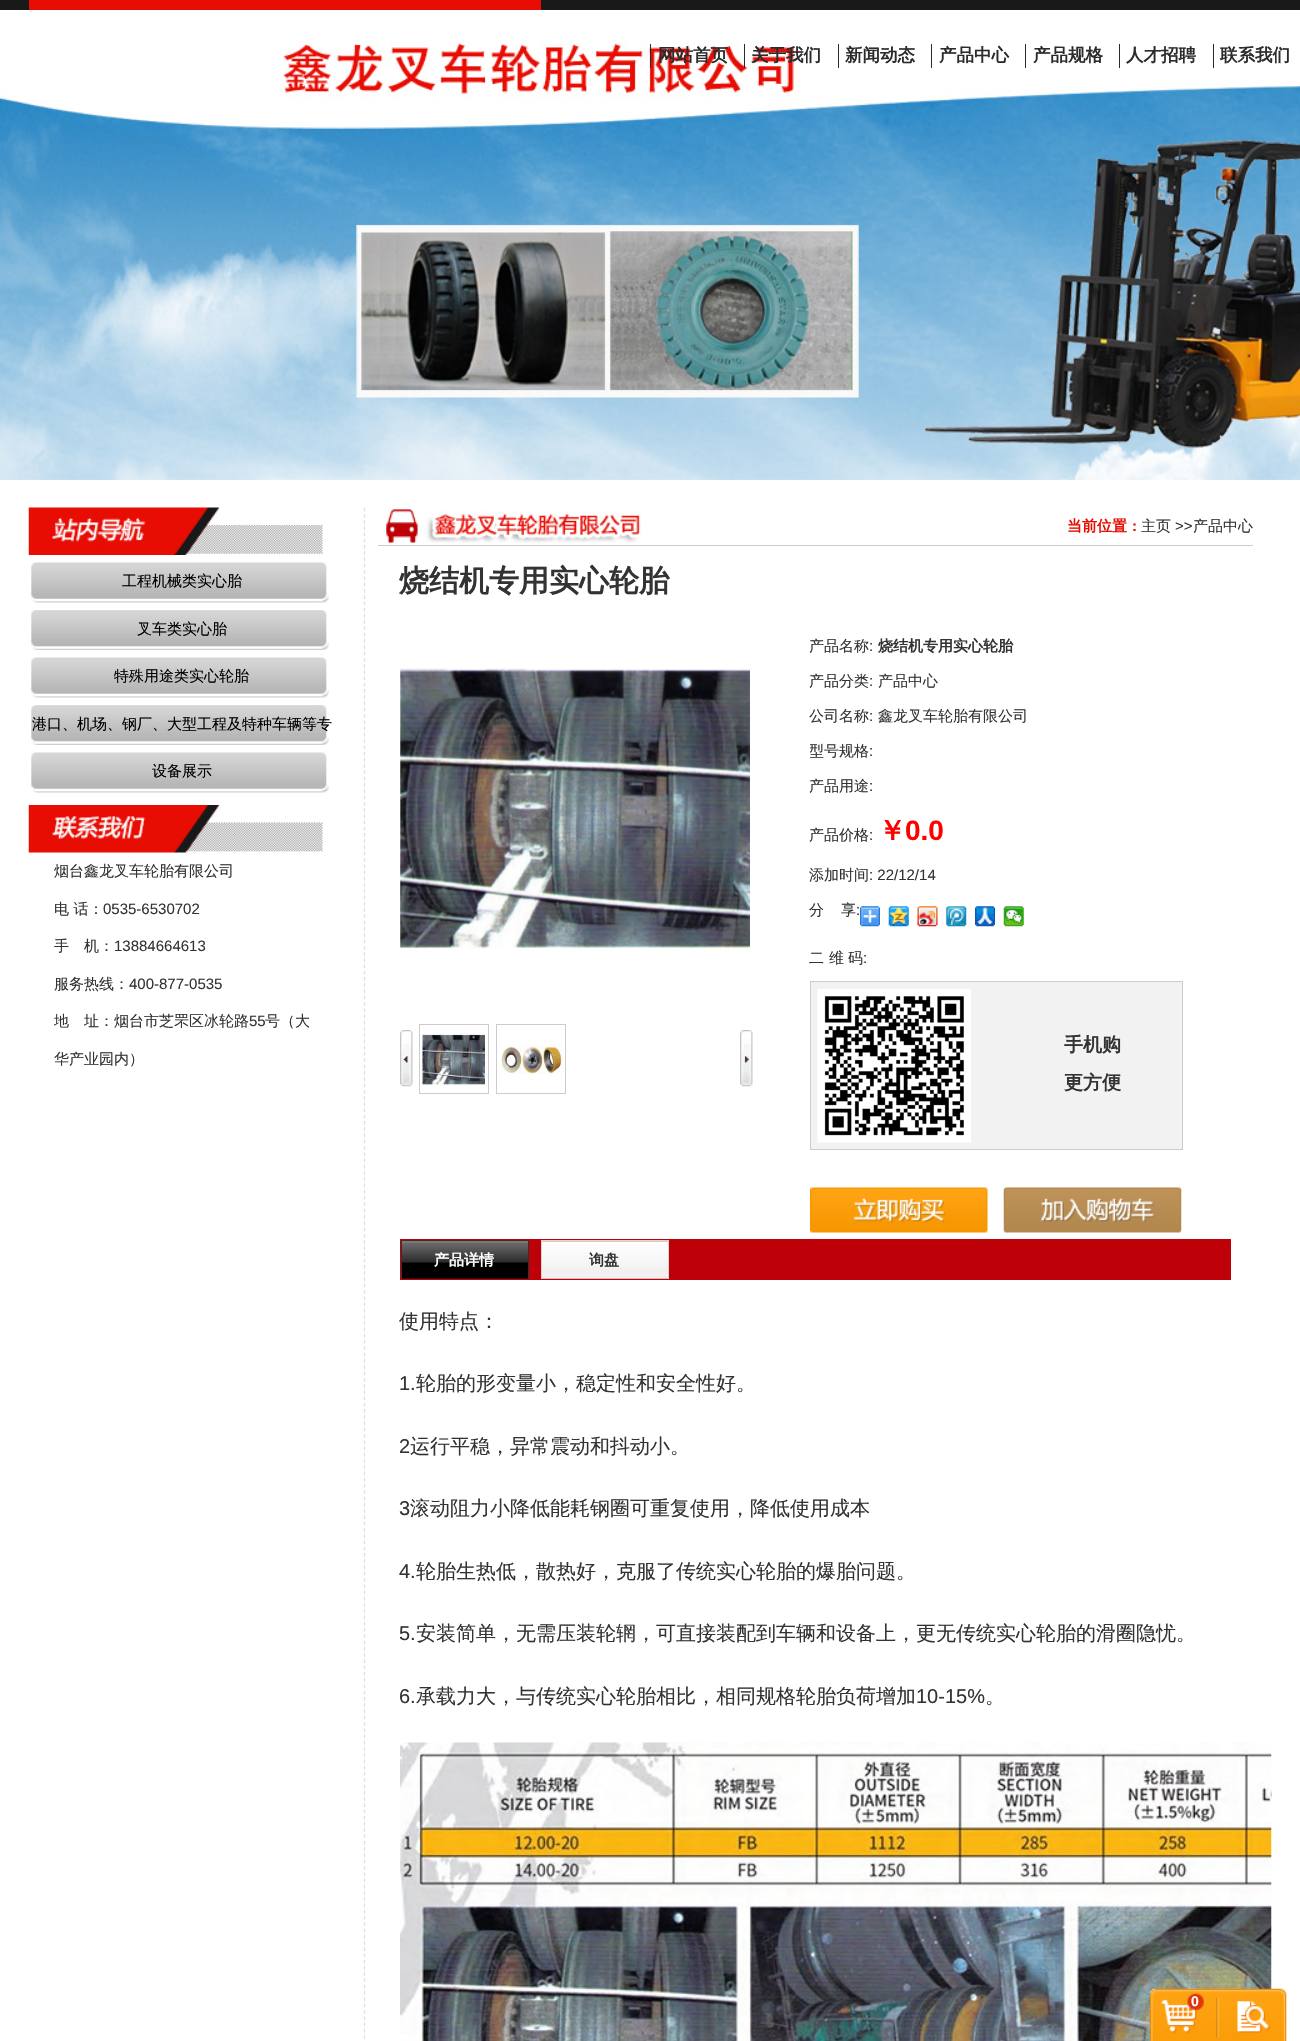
void draw(SkCanvas* canvas) {
	SkPaint paint;
	paint.setAntiAlias(true);
	auto svgPath = [&](const char* data, bool evenOdd = false) {
		SkPath result = *SkParsePath::FromSVGString(data);
		if (evenOdd) result.setFillType(SkPathFillType::kEvenOdd);
		return result;
	};
	canvas->clear(0xffffffff);
	paint.setColor(0xff19191a);
	canvas->drawRect(SkRect::MakeXYWH(0, 0, 1300, 10), paint);
	paint.setColor(0xffe80d03);
	canvas->drawRect(SkRect::MakeXYWH(29, 0, 512, 10), paint);
	canvas->drawImageRect(SkImages::DeferredFromEncodedData(SkData::MakeFromFileName("img1.png")), SkRect::MakeXYWH(0, 40, 1300, 440), SkSamplingOptions());
	paint.setColor(0xff2b2b2b);
	canvas->drawRect(SkRect::MakeXYWH(650, 44, 1, 24), paint);
	SkFont f1(fontMgr->matchFamilyStyle("WenQuanYi Zen Hei", SkFontStyle::Bold()), 17.5);
	f1.setSubpixel(true);
	canvas->drawString("网站首页", 658, 61, f1, paint);
	canvas->drawRect(SkRect::MakeXYWH(744, 44, 1, 24), paint);
	canvas->drawString("关于我们", 751, 61, f1, paint);
	canvas->drawRect(SkRect::MakeXYWH(838, 44, 1, 24), paint);
	canvas->drawString("新闻动态", 845, 61, f1, paint);
	canvas->drawRect(SkRect::MakeXYWH(931, 44, 1, 24), paint);
	canvas->drawString("产品中心", 939, 61, f1, paint);
	canvas->drawRect(SkRect::MakeXYWH(1025, 44, 1, 24), paint);
	canvas->drawString("产品规格", 1033, 61, f1, paint);
	canvas->drawRect(SkRect::MakeXYWH(1119, 44, 1, 24), paint);
	canvas->drawString("人才招聘", 1126, 61, f1, paint);
	canvas->drawRect(SkRect::MakeXYWH(1213, 44, 1, 24), paint);
	canvas->drawString("联系我们", 1220, 61, f1, paint);
	canvas->drawImageRect(SkImages::DeferredFromEncodedData(SkData::MakeFromFileName("img2.png")), SkRect::MakeXYWH(28, 507, 295, 48), SkSamplingOptions());
	canvas->drawImageRect(SkImages::DeferredFromEncodedData(SkData::MakeFromFileName("img3.png")), SkRect::MakeXYWH(31, 562, 298, 41), SkSamplingOptions());
	SkFont f2(fontMgr->matchFamilyStyle("WenQuanYi Zen Hei", SkFontStyle(500, SkFontStyle::kNormal_Width, SkFontStyle::kUpright_Slant)), 15);
	f2.setSubpixel(true);
	paint.setColor(0xff000000);
	canvas->drawString("工程机械类实心胎", 122, 586, f2, paint);
	canvas->drawImageRect(SkImages::DeferredFromEncodedData(SkData::MakeFromFileName("img4.png")), SkRect::MakeXYWH(31, 610, 298, 40), SkSamplingOptions());
	canvas->drawString("叉车类实心胎", 137, 634, f2, paint);
	canvas->drawImageRect(SkImages::DeferredFromEncodedData(SkData::MakeFromFileName("img5.png")), SkRect::MakeXYWH(31, 657, 298, 41), SkSamplingOptions());
	canvas->drawString("特殊用途类实心轮胎", 114, 681, f2, paint);
	canvas->drawImageRect(SkImages::DeferredFromEncodedData(SkData::MakeFromFileName("img4.png")), SkRect::MakeXYWH(31, 705, 298, 40), SkSamplingOptions());
	canvas->drawString("港口、机场、钢厂、大型工程及特种车辆等专", 32, 729, f2, paint);
	canvas->drawImageRect(SkImages::DeferredFromEncodedData(SkData::MakeFromFileName("img5.png")), SkRect::MakeXYWH(31, 752, 298, 41), SkSamplingOptions());
	canvas->drawString("设备展示", 152, 776, f2, paint);
	canvas->drawImageRect(SkImages::DeferredFromEncodedData(SkData::MakeFromFileName("img6.png")), SkRect::MakeXYWH(28, 805, 295, 48), SkSamplingOptions());
	paint.setColor(0xff333333);
	canvas->drawString("烟台鑫龙叉车轮胎有限公司", 54, 876, f2, paint);
	canvas->drawString("电 话：", 54, 914, f2, paint);
	SkFont f3(fontMgr->matchFamilyStyle("Liberation Sans", SkFontStyle::Normal()), 15);
	f3.setSubpixel(true);
	canvas->drawString("0535-6530702", 103, 914, f3, paint);
	canvas->drawString("手　机：", 54, 951, f2, paint);
	canvas->drawString("13884664613", 114, 951, f3, paint);
	canvas->drawString("服务热线：", 54, 989, f2, paint);
	canvas->drawString("400-877-0535", 129, 989, f3, paint);
	canvas->drawString("地　址：烟台市芝罘区冰轮路", 54, 1026, f2, paint);
	canvas->drawString("55", 249, 1026, f3, paint);
	canvas->drawString("号（大", 265, 1026, f2, paint);
	canvas->drawString("华产业园内）", 54, 1064, f2, paint);
	paint.setStroke(true);
	paint.setStrokeWidth(1.2);
	paint.setColor(0xffe0e0e0);
	paint.setPathEffect(SkDashPathEffect::Make({{3.75f, 2.51f}}, 0));
	canvas->drawPath(svgPath("M364.5 507.5V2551"), paint);
	paint.setPathEffect(nullptr);
	canvas->drawImageRect(SkImages::DeferredFromEncodedData(SkData::MakeFromFileName("img7.png")), SkRect::MakeXYWH(385, 509, 256, 34), SkSamplingOptions());
	paint.setStroke(false);
	paint.setColor(0xffcccccc);
	canvas->drawRect(SkRect::MakeXYWH(378, 545, 875, 1), paint);
	SkFont f4(fontMgr->matchFamilyStyle("WenQuanYi Zen Hei", SkFontStyle::Bold()), 15);
	f4.setSubpixel(true);
	paint.setColor(0xffe80d03);
	canvas->drawString("当前位置", 1067, 531, f4, paint);
	SkFont f5(fontMgr->matchFamilyStyle("Liberation Sans", SkFontStyle::Bold()), 15);
	f5.setSubpixel(true);
	canvas->drawString(":", 1132, 531, f5, paint);
	paint.setColor(0xff333333);
	canvas->drawString("主页", 1141, 531, f2, paint);
	canvas->drawString(">>", 1175, 531, f3, paint);
	canvas->drawString("产品中心", 1193, 531, f2, paint);
	SkFont f6(fontMgr->matchFamilyStyle("WenQuanYi Zen Hei", SkFontStyle::Bold()), 30);
	f6.setSubpixel(true);
	canvas->drawString("烧结机专用实心轮胎", 399, 591, f6, paint);
	canvas->drawImageRect(SkImages::DeferredFromEncodedData(SkData::MakeFromFileName("img8.png")), SkRect::MakeXYWH(400, 668, 350, 281), SkSamplingOptions());
	canvas->drawImageRect(SkImages::DeferredFromEncodedData(SkData::MakeFromFileName("img9.png")), SkRect::MakeXYWH(400, 1030, 13, 57), SkSamplingOptions());
	paint.setStroke(true);
	paint.setStrokeWidth(1);
	paint.setColor(0xffcccccc);
	canvas->drawRect(SkRect::MakeXYWH(419.5, 1024.5, 69, 69), paint);
	canvas->drawImageRect(SkImages::DeferredFromEncodedData(SkData::MakeFromFileName("img10.png")), SkRect::MakeXYWH(422, 1034, 63, 52), SkSamplingOptions());
	canvas->drawRect(SkRect::MakeXYWH(496.5, 1024.5, 69, 69), paint);
	canvas->drawImageRect(SkImages::DeferredFromEncodedData(SkData::MakeFromFileName("img11.png")), SkRect::MakeXYWH(501, 1046, 62, 28), SkSamplingOptions());
	canvas->drawImageRect(SkImages::DeferredFromEncodedData(SkData::MakeFromFileName("img12.png")), SkRect::MakeXYWH(740, 1030, 13, 57), SkSamplingOptions());
	paint.setStroke(false);
	paint.setColor(0xff333333);
	canvas->drawString("产品名称", 809, 651, f2, paint);
	canvas->drawString(":", 869, 651, f3, paint);
	canvas->drawString("烧结机专用实心轮胎", 878, 651, f4, paint);
	canvas->drawString("产品分类", 809, 686, f2, paint);
	canvas->drawString(":", 869, 686, f3, paint);
	canvas->drawString("产品中心", 878, 686, f2, paint);
	canvas->drawString("公司名称", 809, 721, f2, paint);
	canvas->drawString(":", 869, 721, f3, paint);
	canvas->drawString("鑫龙叉车轮胎有限公司", 878, 721, f2, paint);
	canvas->save();
	canvas->clipRect(SkRect::MakeXYWH(810, 734, 373, 35));
	canvas->drawString("型号规格", 809, 756, f2, paint);
	canvas->restore();
	canvas->drawString(":", 869, 756, f3, paint);
	canvas->drawString("产品用途", 809, 791, f2, paint);
	canvas->drawString(":", 869, 791, f3, paint);
	canvas->drawString("产品价格", 809, 840, f2, paint);
	canvas->drawString(":", 869, 840, f3, paint);
	SkFont f7(fontMgr->matchFamilyStyle("WenQuanYi Zen Hei", SkFontStyle::Bold()), 28);
	f7.setSubpixel(true);
	paint.setColor(0xffff0000);
	canvas->drawString("￥", 878, 840, f7, paint);
	SkFont f8(fontMgr->matchFamilyStyle("Liberation Sans", SkFontStyle::Bold()), 28);
	f8.setSubpixel(true);
	canvas->drawString("0.0", 905, 840, f8, paint);
	paint.setColor(0xff333333);
	canvas->drawString("添加时间", 809, 880, f2, paint);
	canvas->drawString(": 22/12/14", 869, 880, f3, paint);
	canvas->drawString("分", 809, 915, f2, paint);
	canvas->drawString("享", 841, 915, f2, paint);
	canvas->drawString(":", 856, 915, f3, paint);
	canvas->drawImageRect(SkImages::DeferredFromEncodedData(SkData::MakeFromFileName("img13.png")), SkRect::MakeXYWH(860, 906, 20, 21), SkSamplingOptions());
	canvas->drawImageRect(SkImages::DeferredFromEncodedData(SkData::MakeFromFileName("img14.png")), SkRect::MakeXYWH(888, 906, 21, 21), SkSamplingOptions());
	canvas->drawImageRect(SkImages::DeferredFromEncodedData(SkData::MakeFromFileName("img15.png")), SkRect::MakeXYWH(917, 906, 21, 21), SkSamplingOptions());
	canvas->drawImageRect(SkImages::DeferredFromEncodedData(SkData::MakeFromFileName("img16.png")), SkRect::MakeXYWH(946, 906, 21, 21), SkSamplingOptions());
	canvas->drawImageRect(SkImages::DeferredFromEncodedData(SkData::MakeFromFileName("img17.png")), SkRect::MakeXYWH(975, 906, 20, 21), SkSamplingOptions());
	canvas->drawImageRect(SkImages::DeferredFromEncodedData(SkData::MakeFromFileName("img18.png")), SkRect::MakeXYWH(1003, 906, 21, 21), SkSamplingOptions());
	canvas->drawString("二", 809, 963, f2, paint);
	canvas->drawString("维", 829, 963, f2, paint);
	canvas->drawString("码", 848, 963, f2, paint);
	canvas->drawString(":", 863, 963, f3, paint);
	paint.setColor(0xfff2f2f2);
	canvas->drawRect(SkRect::MakeXYWH(810.5, 981.5, 372, 168), paint);
	paint.setStroke(true);
	paint.setColor(0xffcccccc);
	canvas->drawRect(SkRect::MakeXYWH(810.5, 981.5, 372, 168), paint);
	canvas->drawImageRect(SkImages::DeferredFromEncodedData(SkData::MakeFromFileName("img19.png")), SkRect::MakeXYWH(817, 989, 154, 154), SkSamplingOptions());
	SkFont f9(fontMgr->matchFamilyStyle("WenQuanYi Zen Hei", SkFontStyle::Bold()), 19);
	f9.setSubpixel(true);
	paint.setStroke(false);
	paint.setColor(0xff333333);
	canvas->drawString("手机购", 1064, 1051, f9, paint);
	canvas->drawString("更方便", 1064, 1089, f9, paint);
	canvas->drawImageRect(SkImages::DeferredFromEncodedData(SkData::MakeFromFileName("img20.png")), SkRect::MakeXYWH(810, 1187, 178, 46), SkSamplingOptions());
	canvas->drawImageRect(SkImages::DeferredFromEncodedData(SkData::MakeFromFileName("img21.png")), SkRect::MakeXYWH(1003, 1187, 179, 46), SkSamplingOptions());
	paint.setColor(0xffbe0108);
	canvas->drawRect(SkRect::MakeXYWH(400, 1239, 831, 41), paint);
	canvas->drawImageRect(SkImages::DeferredFromEncodedData(SkData::MakeFromFileName("img22.png")), SkRect::MakeXYWH(402, 1241, 126, 38), SkSamplingOptions());
	paint.setColor(0xff333333);
	canvas->drawRect(SkRect::MakeXYWH(401, 1240, 128, 1), paint);
	canvas->drawRect(SkRect::MakeXYWH(528, 1240, 1, 39), paint);
	canvas->drawRect(SkRect::MakeXYWH(401, 1240, 1, 39), paint);
	paint.setColor(0xffffffff);
	canvas->drawString("产品详情", 434, 1265, f4, paint);
	canvas->drawImageRect(SkImages::DeferredFromEncodedData(SkData::MakeFromFileName("img23.png")), SkRect::MakeXYWH(542, 1241, 126, 38), SkSamplingOptions());
	paint.setColor(0xffd6d6d6);
	canvas->drawRect(SkRect::MakeXYWH(541, 1240, 128, 1), paint);
	canvas->drawRect(SkRect::MakeXYWH(668, 1240, 1, 39), paint);
	canvas->drawRect(SkRect::MakeXYWH(541, 1240, 1, 39), paint);
	paint.setColor(0xff333333);
	canvas->drawString("询盘", 589, 1265, f4, paint);
	SkFont f10(fontMgr->matchFamilyStyle("WenQuanYi Zen Hei", SkFontStyle(500, SkFontStyle::kNormal_Width, SkFontStyle::kUpright_Slant)), 20);
	f10.setSubpixel(true);
	canvas->drawString("使用特点：", 399, 1328, f10, paint);
	SkFont f11(fontMgr->matchFamilyStyle("Liberation Sans", SkFontStyle::Normal()), 20);
	f11.setSubpixel(true);
	canvas->drawString("1.", 399, 1390, f11, paint);
	canvas->drawString("轮胎的形变量小，稳定性和安全性好。", 416, 1390, f10, paint);
	canvas->drawString("2", 399, 1453, f11, paint);
	canvas->drawString("运行平稳，异常震动和抖动小。", 410, 1453, f10, paint);
	canvas->drawString("3", 399, 1515, f11, paint);
	canvas->drawString("滚动阻力小降低能耗钢圈可重复使用，降低使用成本", 410, 1515, f10, paint);
	canvas->drawString("4.", 399, 1578, f11, paint);
	canvas->drawString("轮胎生热低，散热好，克服了传统实心轮胎的爆胎问题。", 416, 1578, f10, paint);
	canvas->drawString("5.", 399, 1640, f11, paint);
	canvas->drawString("安装简单，无需压装轮辋，可直接装配到车辆和设备上，更无传统实心轮胎的滑圈隐忧。", 416, 1640, f10, paint);
	canvas->drawString("6.", 399, 1703, f11, paint);
	canvas->drawString("承载力大，与传统实心轮胎相比，相同规格轮胎负荷增加", 416, 1703, f10, paint);
	canvas->drawString("10-15%", 916, 1703, f11, paint);
	canvas->drawString("。", 985, 1703, f10, paint);
	canvas->drawImageRect(SkImages::DeferredFromEncodedData(SkData::MakeFromFileName("img24.png")), SkRect::MakeXYWH(400, 1742, 872, 299), SkSamplingOptions());
	canvas->drawImageRect(SkImages::DeferredFromEncodedData(SkData::MakeFromFileName("img25.png")), SkRect::MakeXYWH(1150, 1988, 137, 53), SkSamplingOptions());
	SkFont f12(fontMgr->matchFamilyStyle("Liberation Sans", SkFontStyle::Bold()), 14);
	f12.setSubpixel(true);
	paint.setColor(0xffffffff);
	canvas->drawString("0", 1191, 2006, f12, paint);
}
